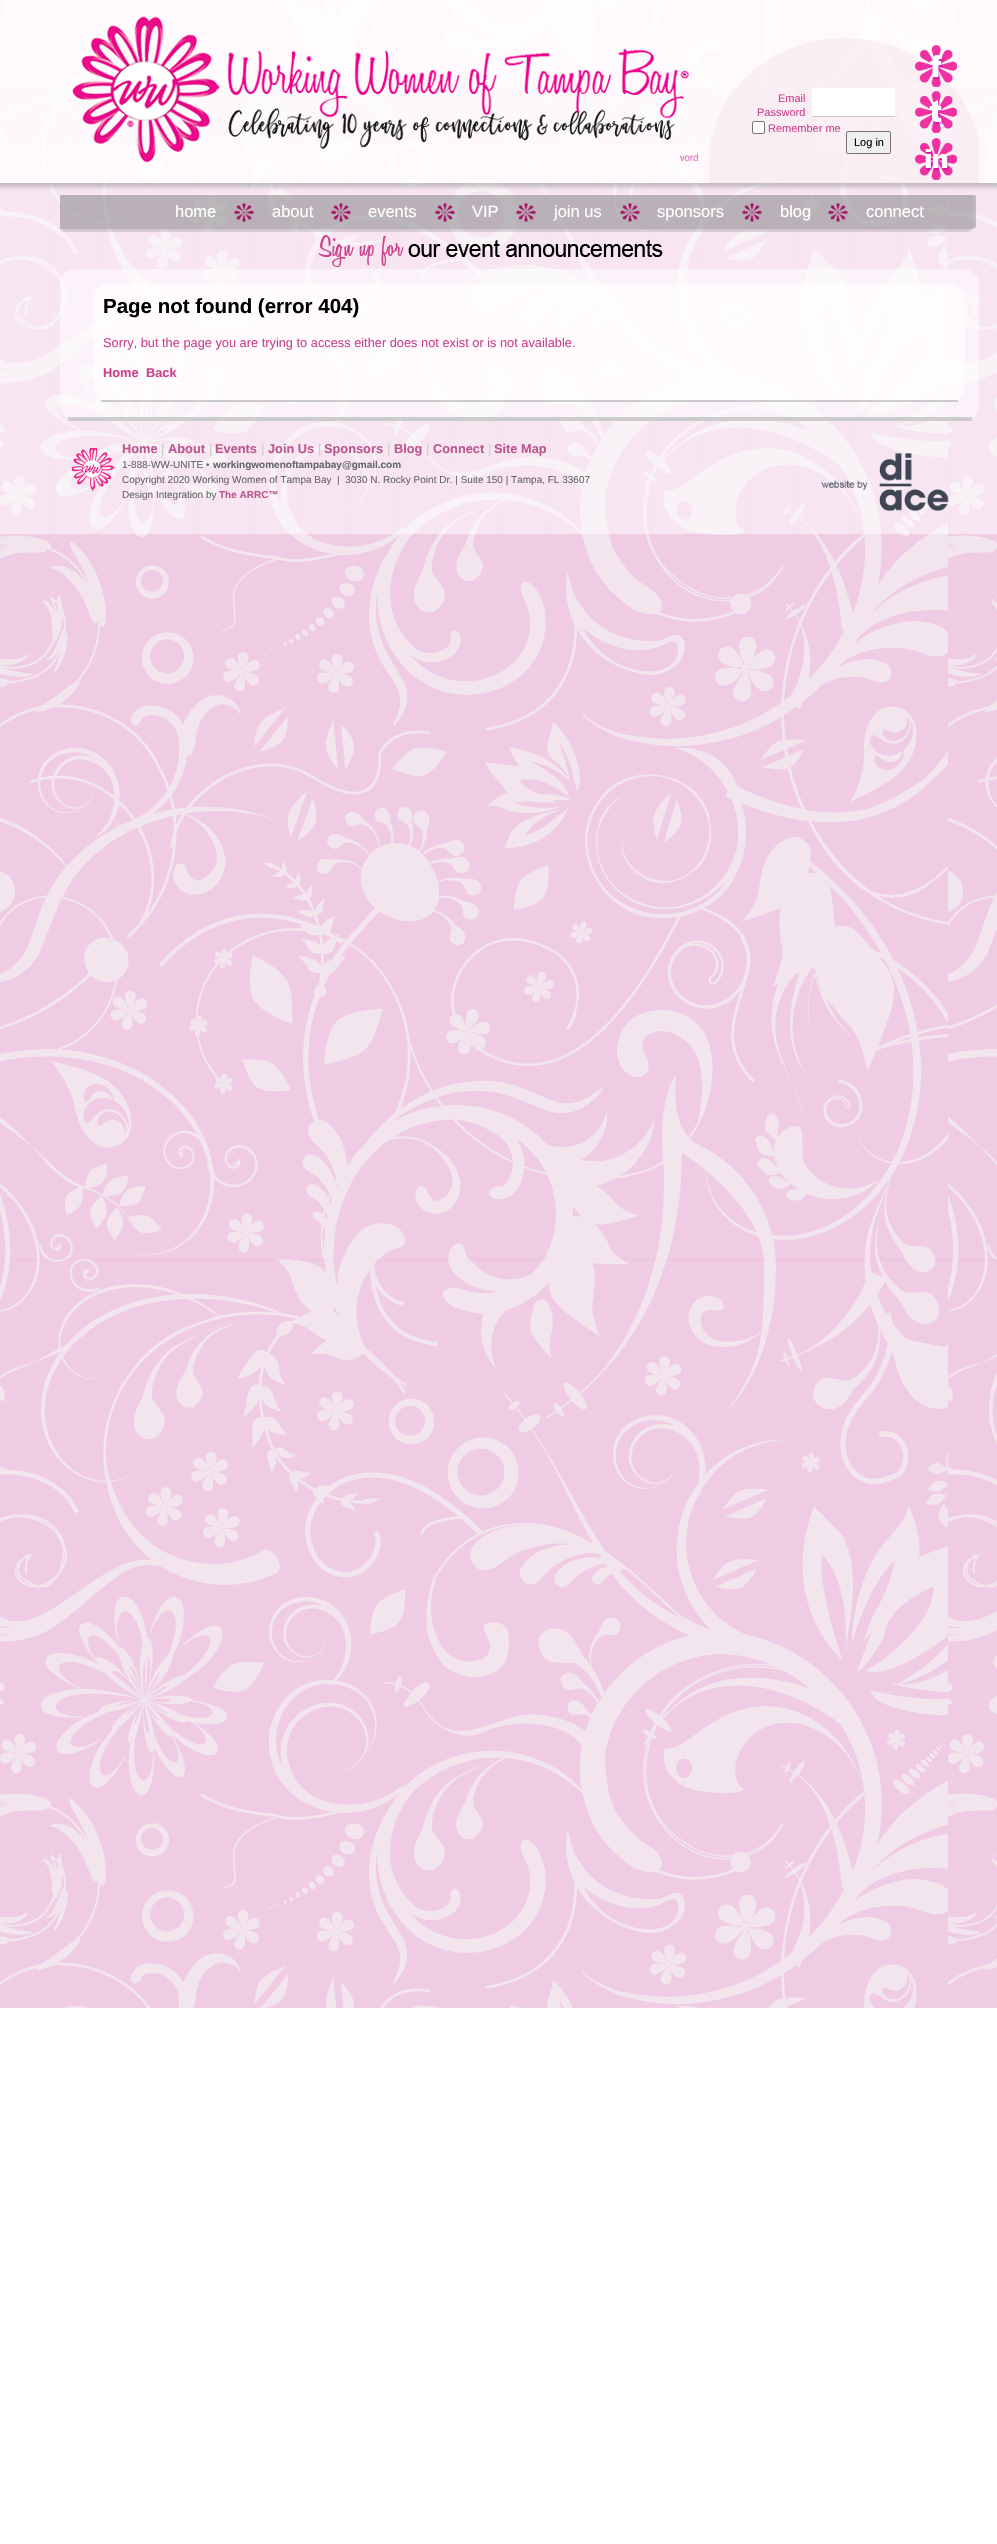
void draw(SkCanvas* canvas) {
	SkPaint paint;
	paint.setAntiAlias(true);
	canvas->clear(0xffffffff);
	canvas->drawImageRect(SkImages::DeferredFromEncodedData(SkData::MakeFromFileName("img1.png")), SkRect::MakeXYWH(0, 545, 997, 1463), SkSamplingOptions());
	canvas->drawImageRect(SkImages::DeferredFromEncodedData(SkData::MakeFromFileName("img2.png")), SkRect::MakeXYWH(0, 0, 997, 545), SkSamplingOptions());
	canvas->drawImageRect(SkImages::DeferredFromEncodedData(SkData::MakeFromFileName("img3.png")), SkRect::MakeXYWH(0, 0, 997, 534), SkSamplingOptions());
	canvas->drawImageRect(SkImages::DeferredFromEncodedData(SkData::MakeFromFileName("img4.png")), SkRect::MakeXYWH(709, 38, 270, 145), SkSamplingOptions());
	canvas->drawImageRect(SkImages::DeferredFromEncodedData(SkData::MakeFromFileName("img5.png")), SkRect::MakeXYWH(72, 16, 617, 147), SkSamplingOptions());
	canvas->drawImageRect(SkImages::DeferredFromEncodedData(SkData::MakeFromFileName("img6.png")), SkRect::MakeXYWH(915, 45, 42, 135), SkSamplingOptions());
	canvas->drawImageRect(SkImages::DeferredFromEncodedData(SkData::MakeFromFileName("img7.png")), SkRect::MakeXYWH(318, 235, 345, 32), SkSamplingOptions());
	canvas->drawImageRect(SkImages::DeferredFromEncodedData(SkData::MakeFromFileName("img8.png")), SkRect::MakeXYWH(60, 269, 919, 150), SkSamplingOptions());
	paint.setColor(0xffcccccc);
	canvas->drawRect(SkRect::MakeXYWH(68, 417, 904, 4), paint);
	SkFont f1(fontMgr->matchFamilyStyle("Liberation Sans", SkFontStyle::Normal()), 11);
	f1.setSubpixel(true);
	paint.setColor(0xffcb418c);
	canvas->drawString("Email", 778, 102, f1, paint);
	paint.setColor(0xffffffff);
	canvas->drawRect(SkRect::MakeXYWH(812, 88, 83, 28), paint);
	paint.setColor(0xffcb418c);
	canvas->drawString("Password", 757, 116, f1, paint);
	paint.setColor(0xffcccccc);
	canvas->drawRect(SkRect::MakeXYWH(812, 116, 83, 1), paint);
	paint.setColor(0xffffffff);
	canvas->drawRoundRect(SkRect::MakeXYWH(752.5, 121.5, 12, 12), 1.5, 1.5, paint);
	paint.setStroke(true);
	paint.setStrokeWidth(1);
	paint.setColor(0xff767676);
	canvas->drawRoundRect(SkRect::MakeXYWH(752.5, 121.5, 12, 12), 1.5, 1.5, paint);
	paint.setStroke(false);
	paint.setColor(0xffcb418c);
	canvas->drawString("Remember me", 768, 132, f1, paint);
	paint.setColor(0xffefefef);
	canvas->drawRoundRect(SkRect::MakeXYWH(846.5, 131.5, 44, 22), 1.5, 1.5, paint);
	paint.setStroke(true);
	paint.setColor(0xff767676);
	canvas->drawRoundRect(SkRect::MakeXYWH(846.5, 131.5, 44, 22), 1.5, 1.5, paint);
	paint.setStroke(false);
	paint.setColor(0xff000000);
	canvas->drawString("Log in", 854, 146, f1, paint);
	canvas->save();
	canvas->clipRect(SkRect::MakeXYWH(680, 60, 215, 138));
	SkFont f2(fontMgr->matchFamilyStyle("Liberation Sans", SkFontStyle::Normal()), 10);
	f2.setSubpixel(true);
	paint.setColor(0xffd675b8);
	canvas->drawString("word", 677, 161, f2, paint);
	canvas->restore();
	canvas->drawImageRect(SkImages::DeferredFromEncodedData(SkData::MakeFromFileName("img9.png")), SkRect::MakeXYWH(93, 284, 872, 116), SkSamplingOptions());
	paint.setColor(0xffcccccc);
	canvas->drawRect(SkRect::MakeXYWH(101, 400, 857, 2), paint);
	SkFont f3(fontMgr->matchFamilyStyle("Liberation Sans", SkFontStyle::Bold()), 20.5);
	f3.setSubpixel(true);
	paint.setColor(0xff000000);
	canvas->drawString("Page not found (error 404)", 103, 313, f3, paint);
	SkFont f4(fontMgr->matchFamilyStyle("Liberation Sans", SkFontStyle::Normal()), 12.8);
	f4.setSubpixel(true);
	paint.setColor(0xffcb418c);
	canvas->drawString("Sorry, but the page you are trying to access either does not exist or is not available.", 103, 347, f4, paint);
	SkFont f5(fontMgr->matchFamilyStyle("Liberation Sans", SkFontStyle::Bold()), 12.8);
	f5.setSubpixel(true);
	canvas->drawString("Home", 103, 377, f5, paint);
	canvas->drawString("Back", 146, 377, f5, paint);
	canvas->drawImageRect(SkImages::DeferredFromEncodedData(SkData::MakeFromFileName("img10.png")), SkRect::MakeXYWH(60, 195, 916, 37), SkSamplingOptions());
	SkFont f6(fontMgr->matchFamilyStyle("Liberation Sans", SkFontStyle::Normal()), 16.5);
	f6.setSubpixel(true);
	paint.setColor(0xffffffff);
	canvas->drawString("home", 175, 217, f6, paint);
	canvas->drawImageRect(SkImages::DeferredFromEncodedData(SkData::MakeFromFileName("img11.png")), SkRect::MakeXYWH(234, 203, 20, 19), SkSamplingOptions());
	paint.setColor(0xffcccccc);
	canvas->drawRect(SkRect::MakeXYWH(240, 212, 1, 1), paint);
	paint.setColor(0xffffffff);
	canvas->drawString("about", 272, 217, f6, paint);
	canvas->drawImageRect(SkImages::DeferredFromEncodedData(SkData::MakeFromFileName("img12.png")), SkRect::MakeXYWH(331, 203, 20, 19), SkSamplingOptions());
	paint.setColor(0xffcccccc);
	canvas->drawRect(SkRect::MakeXYWH(336, 212, 1, 1), paint);
	paint.setColor(0xffffffff);
	canvas->drawString("events", 368, 217, f6, paint);
	canvas->drawImageRect(SkImages::DeferredFromEncodedData(SkData::MakeFromFileName("img13.png")), SkRect::MakeXYWH(435, 203, 20, 19), SkSamplingOptions());
	paint.setColor(0xffcccccc);
	canvas->drawRect(SkRect::MakeXYWH(440, 212, 1, 1), paint);
	paint.setColor(0xffffffff);
	canvas->drawString("VIP", 472, 217, f6, paint);
	canvas->drawImageRect(SkImages::DeferredFromEncodedData(SkData::MakeFromFileName("img14.png")), SkRect::MakeXYWH(516, 203, 20, 19), SkSamplingOptions());
	paint.setColor(0xffcccccc);
	canvas->drawRect(SkRect::MakeXYWH(522, 212, 1, 1), paint);
	paint.setColor(0xffffffff);
	canvas->drawString("join us", 554, 217, f6, paint);
	canvas->drawImageRect(SkImages::DeferredFromEncodedData(SkData::MakeFromFileName("img15.png")), SkRect::MakeXYWH(620, 203, 20, 19), SkSamplingOptions());
	paint.setColor(0xffcccccc);
	canvas->drawRect(SkRect::MakeXYWH(625, 212, 1, 1), paint);
	paint.setColor(0xffffffff);
	canvas->drawString("sponsors", 657, 217, f6, paint);
	canvas->drawImageRect(SkImages::DeferredFromEncodedData(SkData::MakeFromFileName("img16.png")), SkRect::MakeXYWH(742, 203, 20, 19), SkSamplingOptions());
	paint.setColor(0xffcccccc);
	canvas->drawRect(SkRect::MakeXYWH(748, 212, 1, 1), paint);
	paint.setColor(0xffffffff);
	canvas->drawString("blog", 780, 217, f6, paint);
	canvas->drawImageRect(SkImages::DeferredFromEncodedData(SkData::MakeFromFileName("img17.png")), SkRect::MakeXYWH(828, 203, 20, 19), SkSamplingOptions());
	paint.setColor(0xffcccccc);
	canvas->drawRect(SkRect::MakeXYWH(834, 212, 1, 1), paint);
	paint.setColor(0xffffffff);
	canvas->drawString("connect", 866, 217, f6, paint);
	canvas->drawImageRect(SkImages::DeferredFromEncodedData(SkData::MakeFromFileName("img18.png")), SkRect::MakeXYWH(72, 448, 43, 43), SkSamplingOptions());
	paint.setColor(0xffbb578e);
	canvas->drawString("Home", 122, 453, f5, paint);
	paint.setColor(0xffcccccc);
	canvas->drawString("|", 161, 453, f4, paint);
	paint.setColor(0xffbb578e);
	canvas->drawString("About", 168, 453, f5, paint);
	paint.setColor(0xffcccccc);
	canvas->drawString("|", 209, 453, f4, paint);
	paint.setColor(0xffbb578e);
	canvas->drawString("Events", 215, 453, f5, paint);
	paint.setColor(0xffcccccc);
	canvas->drawString("|", 261, 453, f4, paint);
	paint.setColor(0xffbb578e);
	canvas->drawString("Join Us", 268, 453, f5, paint);
	paint.setColor(0xffcccccc);
	canvas->drawString("|", 318, 453, f4, paint);
	paint.setColor(0xffbb578e);
	canvas->drawString("Sponsors", 324, 453, f5, paint);
	paint.setColor(0xffcccccc);
	canvas->drawString("|", 387, 453, f4, paint);
	paint.setColor(0xffbb578e);
	canvas->drawString("Blog", 394, 453, f5, paint);
	paint.setColor(0xffcccccc);
	canvas->drawString("|", 426, 453, f4, paint);
	paint.setColor(0xffbb578e);
	canvas->drawString("Connect", 433, 453, f5, paint);
	paint.setColor(0xffcccccc);
	canvas->drawString("|", 488, 453, f4, paint);
	paint.setColor(0xffbb578e);
	canvas->drawString("Site Map", 494, 453, f5, paint);
	canvas->drawImageRect(SkImages::DeferredFromEncodedData(SkData::MakeFromFileName("img19.png")), SkRect::MakeXYWH(821, 453, 128, 58), SkSamplingOptions());
	paint.setColor(0xff666666);
	canvas->drawString("1-888-WW-UNITE •", 122, 468, f2, paint);
	SkFont f7(fontMgr->matchFamilyStyle("Liberation Sans", SkFontStyle::Bold()), 10);
	f7.setSubpixel(true);
	canvas->drawString("workingwomenoftampabay@gmail.com", 213, 468, f7, paint);
	canvas->drawString("Copyright 2020 Working Women of Tampa Bay  |  3030 N. Rocky Point Dr. | Suite 150 | Tampa, FL 33607", 122, 483, f2, paint);
	canvas->drawString("Design Integration by", 122, 498, f2, paint);
	paint.setColor(0xffbb578e);
	canvas->drawString("The ARRC™", 219, 498, f7, paint);
}
